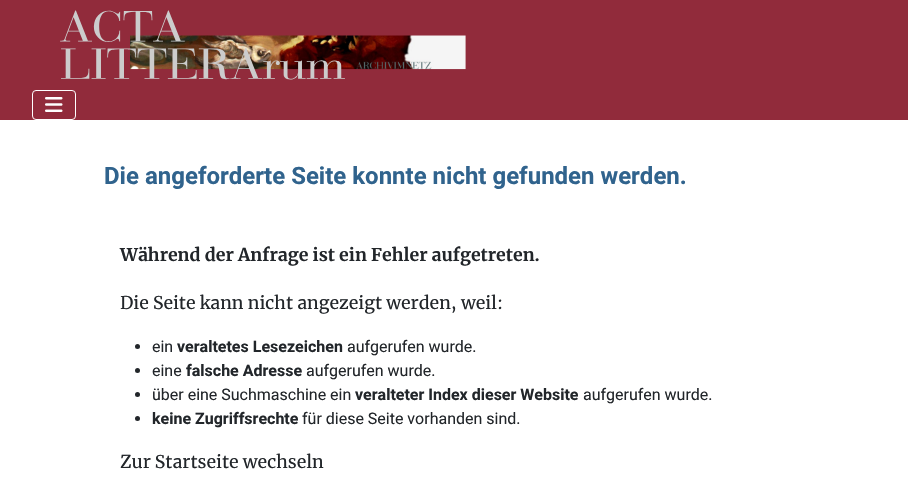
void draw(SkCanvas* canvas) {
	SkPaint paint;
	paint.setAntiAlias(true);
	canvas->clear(0xffffffff);
	paint.setColor(0xff912b3b);
	canvas->drawRect(SkRect::MakeXYWH(0, 0, 908, 120), paint);
	canvas->drawImageRect(SkImages::DeferredFromEncodedData(SkData::MakeFromFileName("img1.png")), SkRect::MakeXYWH(60, 10, 406, 70), SkSamplingOptions());
	paint.setStroke(true);
	paint.setStrokeWidth(1);
	paint.setColor(0xffffffff);
	canvas->drawRoundRect(SkRect::MakeXYWH(32.5, 90.5, 43, 29), 3.5, 3.5, paint);
	canvas->drawImageRect(SkImages::DeferredFromEncodedData(SkData::MakeFromFileName("img2.png")), SkRect::MakeXYWH(45, 97, 18, 15), SkSamplingOptions());
	SkFont f1(fontMgr->matchFamilyStyle("Roboto", SkFontStyle::Bold()), 24);
	f1.setSubpixel(true);
	paint.setStroke(false);
	paint.setColor(0xff30638d);
	canvas->drawString("Die angeforderte Seite konnte nicht gefunden werden.", 104, 184, f1, paint);
	SkFont f2(fontMgr->matchFamilyStyle("Merriweather", SkFontStyle::Bold()), 17.6);
	f2.setSubpixel(true);
	paint.setColor(0xff22262a);
	canvas->drawString("Während der Anfrage ist ein Fehler aufgetreten.", 120, 261, f2, paint);
	SkFont f3(fontMgr->matchFamilyStyle("Merriweather", SkFontStyle::Normal()), 17.6);
	f3.setSubpixel(true);
	canvas->drawString("Die Seite kann nicht angezeigt werden, weil:", 120, 309, f3, paint);
	canvas->drawCircle(137.5, 346.5, 2.5, paint);
	SkFont f4(fontMgr->matchFamilyStyle("Roboto", SkFontStyle::Normal()), 16);
	f4.setSubpixel(true);
	canvas->drawString("ein", 152, 352, f4, paint);
	SkFont f5(fontMgr->matchFamilyStyle("Roboto", SkFontStyle::Bold()), 16);
	f5.setSubpixel(true);
	canvas->drawString("veraltetes Lesezeichen", 177, 352, f5, paint);
	canvas->drawString("aufgerufen wurde.", 347, 352, f4, paint);
	canvas->drawCircle(137.5, 370.5, 2.5, paint);
	canvas->drawString("eine", 152, 376, f4, paint);
	canvas->drawString("falsche Adresse", 186, 376, f5, paint);
	canvas->drawString("aufgerufen wurde.", 306, 376, f4, paint);
	canvas->drawCircle(137.5, 394.5, 2.5, paint);
	canvas->drawString("über eine Suchmaschine ein", 152, 400, f4, paint);
	canvas->drawString("veralteter Index dieser Website", 355, 400, f5, paint);
	canvas->drawString("aufgerufen wurde.", 583, 400, f4, paint);
	canvas->drawCircle(137.5, 418.5, 2.5, paint);
	canvas->drawString("keine Zugriffsrechte", 152, 424, f5, paint);
	canvas->drawString("für diese Seite vorhanden sind.", 302, 424, f4, paint);
	canvas->drawString("Zur Startseite wechseln", 120, 468, f3, paint);
}
